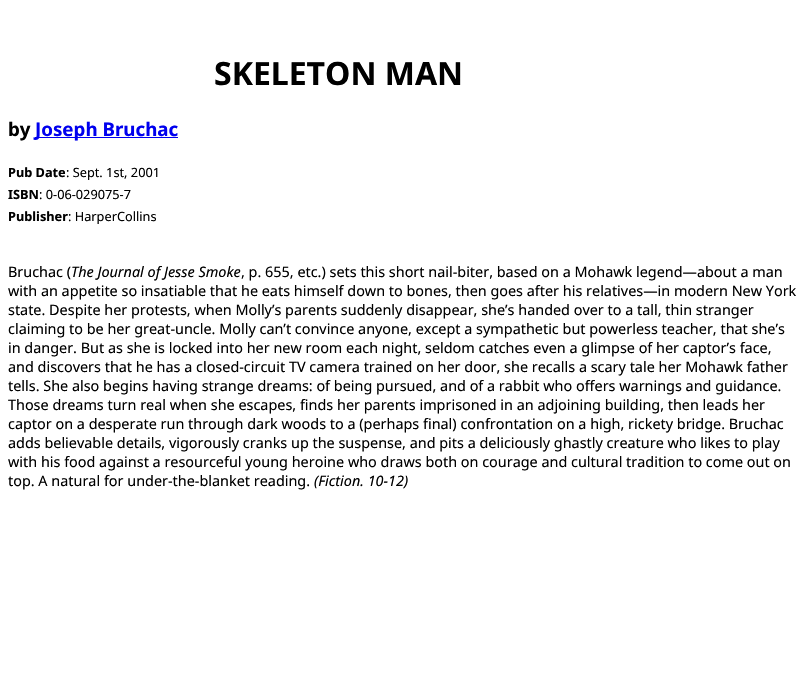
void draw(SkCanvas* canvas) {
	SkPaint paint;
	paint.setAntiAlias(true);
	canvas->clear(0xffffffff);
	SkFont f1(fontMgr->matchFamilyStyle("Noto Sans", SkFontStyle::Bold()), 32);
	f1.setSubpixel(true);
	paint.setColor(0xff000000);
	canvas->drawString("SKELETON MAN", 214, 85, f1, paint);
	SkFont f2(fontMgr->matchFamilyStyle("Noto Sans", SkFontStyle::Bold()), 18.75);
	f2.setSubpixel(true);
	canvas->drawString("by", 8, 136, f2, paint);
	paint.setColor(0xff0000ee);
	canvas->drawRect(SkRect::MakeXYWH(35, 137, 143, 1), paint);
	canvas->drawString("Joseph Bruchac", 35, 136, f2, paint);
	SkFont f3(fontMgr->matchFamilyStyle("Noto Sans", SkFontStyle::Bold()), 12.75);
	f3.setSubpixel(true);
	paint.setColor(0xff000000);
	canvas->drawString("Pub Date", 8, 177, f3, paint);
	SkFont f4(fontMgr->matchFamilyStyle("Noto Sans", SkFontStyle::Normal()), 12.75);
	f4.setSubpixel(true);
	canvas->drawString(": Sept. 1st, 2001", 66, 177, f4, paint);
	canvas->drawString("ISBN", 8, 199, f3, paint);
	canvas->drawString(": 0-06-029075-7", 39, 199, f4, paint);
	canvas->drawString("Publisher", 8, 221, f3, paint);
	canvas->drawString(": HarperCollins", 68, 221, f4, paint);
	SkFont f5(fontMgr->matchFamilyStyle("Noto Sans", SkFontStyle::Normal()), 14.4);
	f5.setSubpixel(true);
	canvas->drawString("Bruchac (", 8, 277, f5, paint);
	SkFont f6(fontMgr->matchFamilyStyle("Noto Sans", SkFontStyle::Italic()), 14.4);
	f6.setSubpixel(true);
	canvas->drawString("The Journal of Jesse Smoke", 71, 277, f6, paint);
	canvas->drawString(", p. 655, etc.) sets this short nail-biter, based on a Mohawk legend—about a man", 241, 277, f5, paint);
	canvas->drawString("with an appetite so insatiable that he eats himself down to bones, then goes after his relatives—in modern New York", 8, 296, f5, paint);
	canvas->drawString("state. Despite her protests, when Molly’s parents suddenly disappear, she’s handed over to a tall, thin stranger", 8, 315, f5, paint);
	canvas->drawString("claiming to be her great-uncle. Molly can’t convince anyone, except a sympathetic but powerless teacher, that she’s", 8, 334, f5, paint);
	canvas->drawString("in danger. But as she is locked into her new room each night, seldom catches even a glimpse of her captor’s face,", 8, 353, f5, paint);
	canvas->drawString("and discovers that he has a closed-circuit TV camera trained on her door, she recalls a scary tale her Mohawk father", 8, 372, f5, paint);
	canvas->drawString("tells. She also begins having strange dreams: of being pursued, and of a rabbit who offers warnings and guidance.", 8, 391, f5, paint);
	canvas->drawString("Those dreams turn real when she escapes, finds her parents imprisoned in an adjoining building, then leads her", 8, 410, f5, paint);
	canvas->drawString("captor on a desperate run through dark woods to a (perhaps final) confrontation on a high, rickety bridge. Bruchac", 8, 429, f5, paint);
	canvas->drawString("adds believable details, vigorously cranks up the suspense, and pits a deliciously ghastly creature who likes to play", 8, 448, f5, paint);
	canvas->drawString("with his food against a resourceful young heroine who draws both on courage and cultural tradition to come out on", 8, 467, f5, paint);
	canvas->drawString("top. A natural for under-the-blanket reading.", 8, 486, f5, paint);
	canvas->drawString("(Fiction. 10-12)", 314, 486, f6, paint);
}
